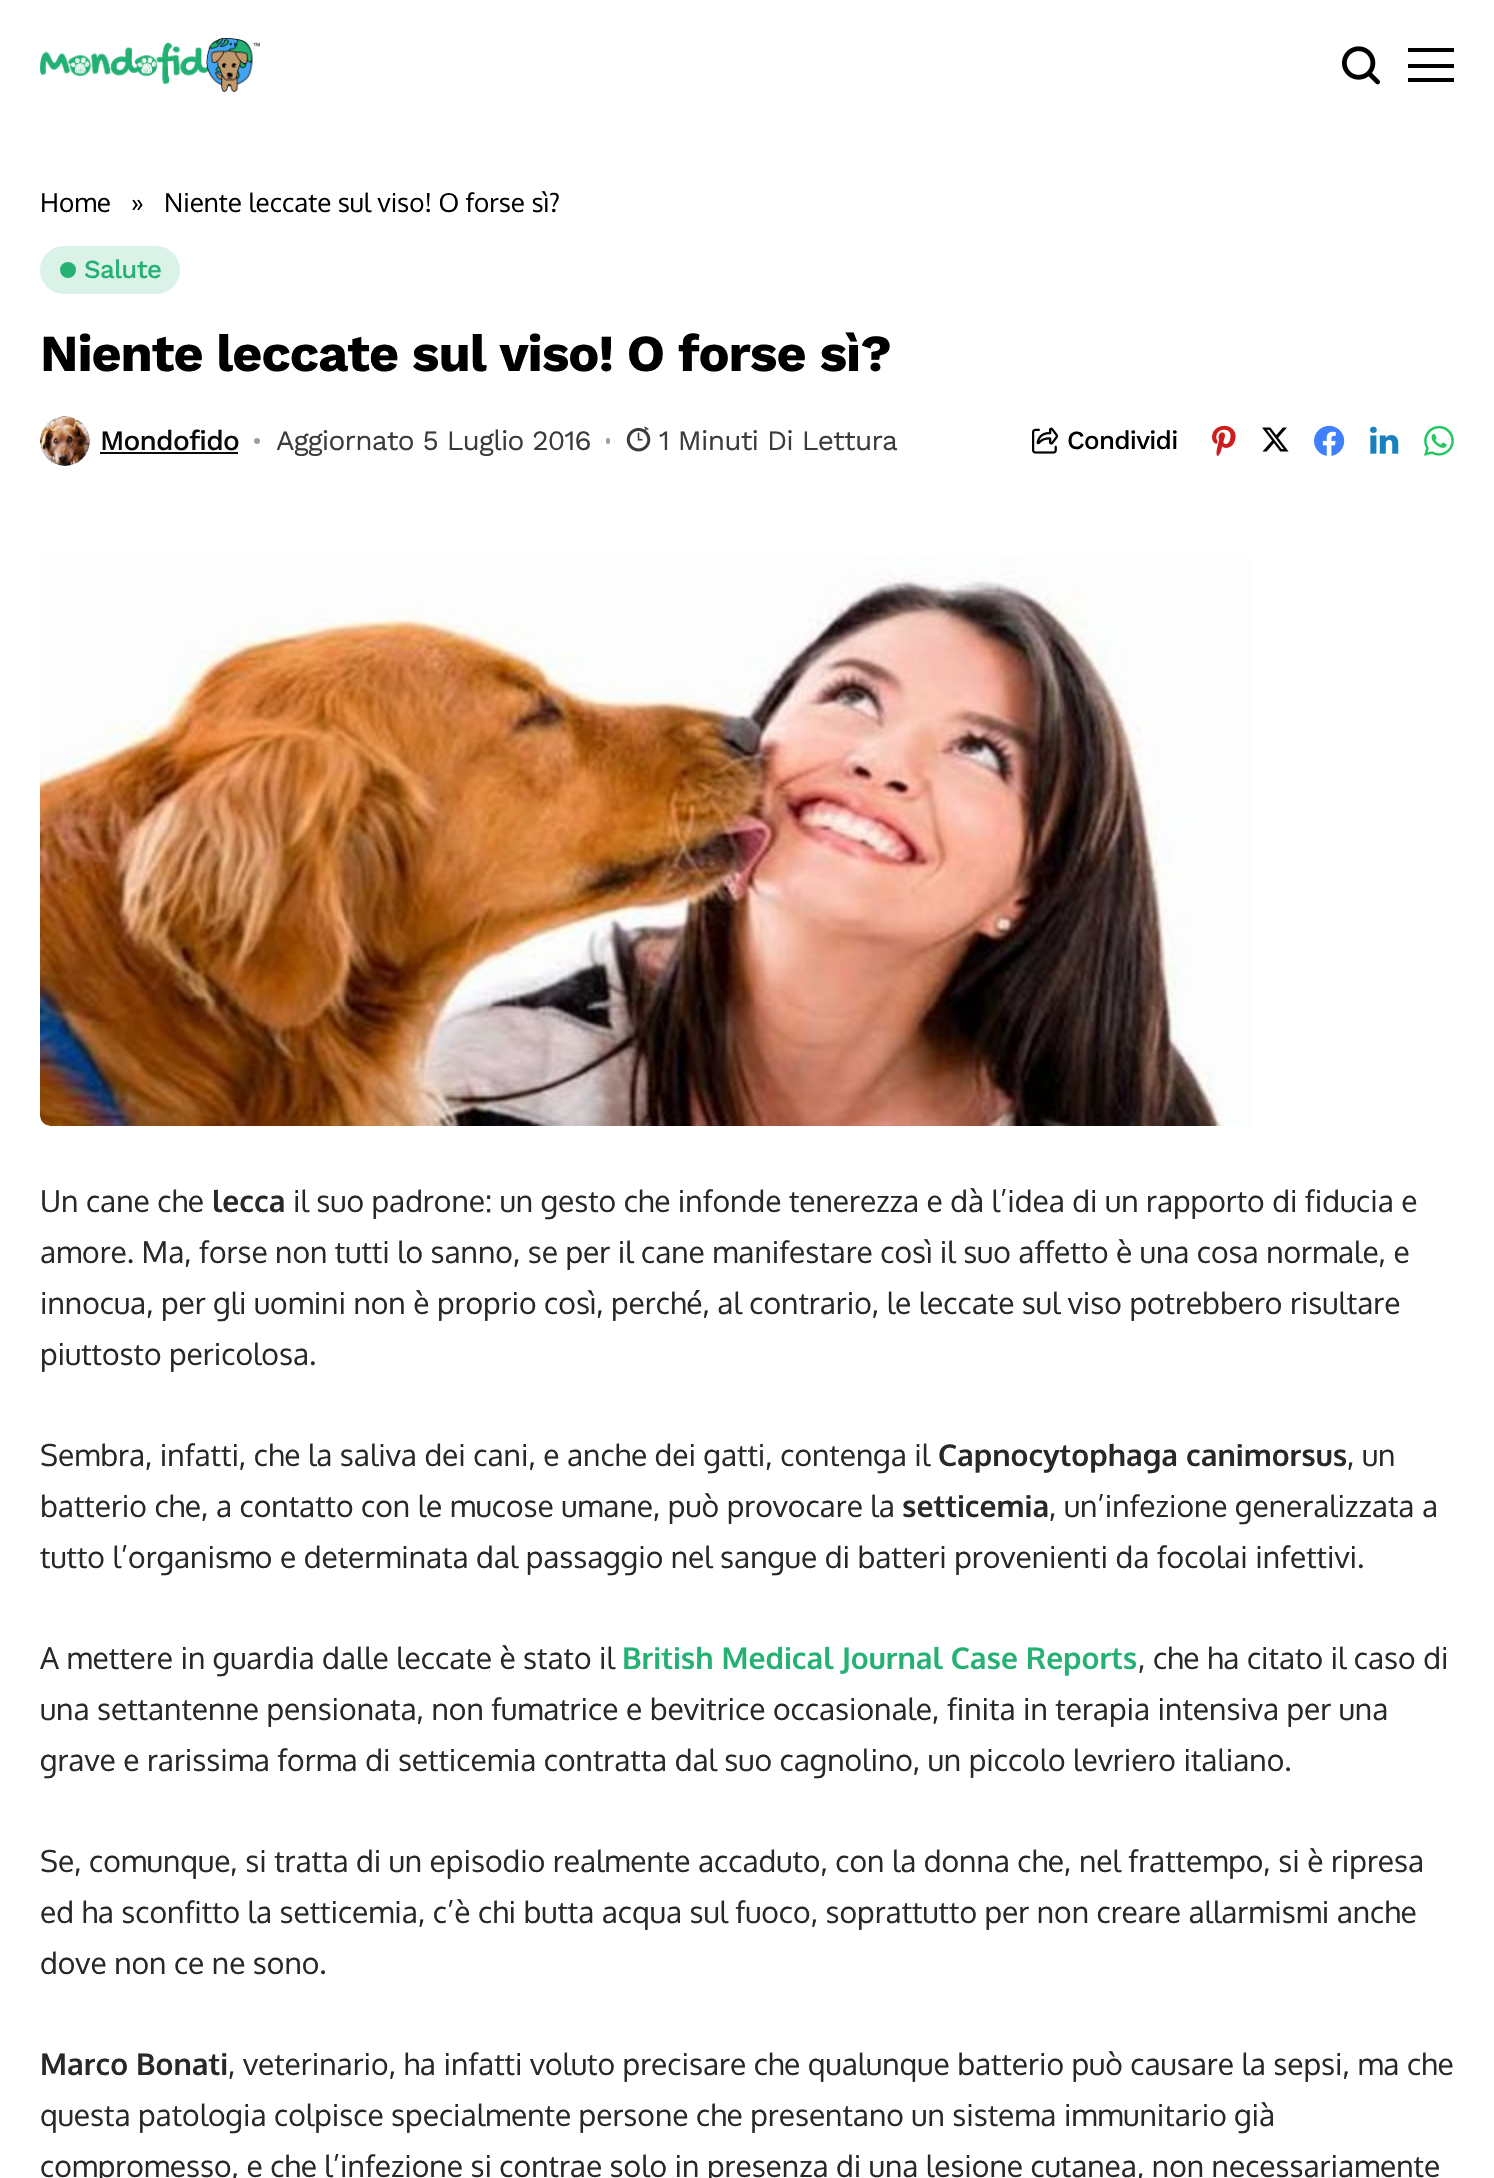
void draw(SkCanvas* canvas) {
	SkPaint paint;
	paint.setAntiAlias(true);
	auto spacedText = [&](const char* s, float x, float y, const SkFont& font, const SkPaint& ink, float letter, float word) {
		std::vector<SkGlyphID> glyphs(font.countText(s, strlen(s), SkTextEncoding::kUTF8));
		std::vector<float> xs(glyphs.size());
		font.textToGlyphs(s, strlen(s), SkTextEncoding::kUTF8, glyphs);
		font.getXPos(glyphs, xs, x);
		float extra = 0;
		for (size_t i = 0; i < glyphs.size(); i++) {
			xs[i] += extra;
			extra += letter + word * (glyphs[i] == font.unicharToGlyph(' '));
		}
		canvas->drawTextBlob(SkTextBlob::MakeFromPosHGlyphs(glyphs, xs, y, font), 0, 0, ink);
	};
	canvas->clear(0xffffffff);
	canvas->drawImageRect(SkImages::DeferredFromEncodedData(SkData::MakeFromFileName("img1.png")), SkRect::MakeXYWH(40, 38, 220, 54), SkSamplingOptions());
	canvas->drawImageRect(SkImages::DeferredFromEncodedData(SkData::MakeFromFileName("img2.png")), SkRect::MakeXYWH(1342, 46, 38, 39), SkSamplingOptions());
	paint.setColor(0xff000000);
	canvas->drawRect(SkRect::MakeXYWH(1408, 48, 46, 4), paint);
	canvas->drawRect(SkRect::MakeXYWH(1408, 64, 46, 4), paint);
	canvas->drawRect(SkRect::MakeXYWH(1408, 78, 46, 4), paint);
	SkFont f1(fontMgr->matchFamilyStyle("Oxygen", SkFontStyle::Normal()), 26);
	f1.setSubpixel(true);
	canvas->drawString("Home", 40, 212, f1, paint);
	canvas->drawString("»", 131, 212, f1, paint);
	canvas->drawString("Niente leccate sul viso! O forse sì?", 164, 212, f1, paint);
	paint.setColor(0xffdaf2e7);
	canvas->drawRoundRect(SkRect::MakeXYWH(40, 246, 140, 48), 24, 24, paint);
	paint.setColor(0xff24b173);
	canvas->drawCircle(68, 270, 8, paint);
	SkFont f2(fontMgr->matchFamilyStyle("Work Sans", SkFontStyle(500, SkFontStyle::kNormal_Width, SkFontStyle::kUpright_Slant)), 26);
	f2.setSubpixel(true);
	spacedText("Salute", 84, 278, f2, paint, -0.75, 0);
	SkFont f3(fontMgr->matchFamilyStyle("Work Sans", SkFontStyle::Bold()), 52);
	f3.setSubpixel(true);
	paint.setColor(0xff000000);
	spacedText("Niente leccate sul viso! O forse sì?", 40, 371, f3, paint, -1.05, 0);
	canvas->drawImageRect(SkImages::DeferredFromEncodedData(SkData::MakeFromFileName("img3.png")), SkRect::MakeXYWH(40, 416, 50, 50), SkSamplingOptions());
	SkFont f4(fontMgr->matchFamilyStyle("Work Sans", SkFontStyle(500, SkFontStyle::kNormal_Width, SkFontStyle::kUpright_Slant)), 28);
	f4.setSubpixel(true);
	paint.setColor(0xff0a0a0a);
	spacedText("Mondofido", 100, 450, f4, paint, -0.8, 0);
	canvas->drawRect(SkRect::MakeXYWH(100, 452, 138, 2), paint);
	paint.setColor(0xff9d9d9d);
	canvas->drawCircle(257, 441, 3, paint);
	SkFont f5(fontMgr->matchFamilyStyle("Work Sans", SkFontStyle::Normal()), 28);
	f5.setSubpixel(true);
	paint.setColor(0xff3b3b3b);
	spacedText("Aggiornato 5 Luglio 2016", 276, 450, f5, paint, -0.8, 0);
	paint.setColor(0xff9d9d9d);
	canvas->drawRoundRect(SkRect::MakeXYWH(606, 438, 4, 6), 2, 2, paint);
	canvas->drawImageRect(SkImages::DeferredFromEncodedData(SkData::MakeFromFileName("img4.png")), SkRect::MakeXYWH(626, 426, 25, 26), SkSamplingOptions());
	paint.setColor(0xff3b3b3b);
	spacedText("1 Minuti Di Lettura", 659, 450, f5, paint, -0.8, 0);
	canvas->drawImageRect(SkImages::DeferredFromEncodedData(SkData::MakeFromFileName("img5.png")), SkRect::MakeXYWH(1032, 427, 26, 27), SkSamplingOptions());
	paint.setColor(0xff000000);
	spacedText("Condividi", 1067, 449, f2, paint, -0.75, 0);
	canvas->drawImageRect(SkImages::DeferredFromEncodedData(SkData::MakeFromFileName("img6.png")), SkRect::MakeXYWH(1212, 425, 24, 31), SkSamplingOptions());
	canvas->drawImageRect(SkImages::DeferredFromEncodedData(SkData::MakeFromFileName("img7.png")), SkRect::MakeXYWH(1262, 427, 27, 25), SkSamplingOptions());
	canvas->drawImageRect(SkImages::DeferredFromEncodedData(SkData::MakeFromFileName("img8.png")), SkRect::MakeXYWH(1314, 425, 31, 31), SkSamplingOptions());
	canvas->drawImageRect(SkImages::DeferredFromEncodedData(SkData::MakeFromFileName("img9.png")), SkRect::MakeXYWH(1370, 426, 29, 28), SkSamplingOptions());
	canvas->drawImageRect(SkImages::DeferredFromEncodedData(SkData::MakeFromFileName("img10.png")), SkRect::MakeXYWH(1424, 425, 30, 31), SkSamplingOptions());
	canvas->drawImageRect(SkImages::DeferredFromEncodedData(SkData::MakeFromFileName("img11.png")), SkRect::MakeXYWH(40, 558, 1211, 568), SkSamplingOptions());
	SkFont f6(fontMgr->matchFamilyStyle("Oxygen", SkFontStyle::Normal()), 30);
	f6.setSubpixel(true);
	paint.setColor(0xff282828);
	canvas->drawString("Un cane che", 40, 1212, f6, paint);
	SkFont f7(fontMgr->matchFamilyStyle("Oxygen", SkFontStyle::Bold()), 30);
	f7.setSubpixel(true);
	canvas->drawString("lecca", 212, 1212, f7, paint);
	canvas->drawString("il suo padrone: un gesto che infonde tenerezza e dà l’idea di un rapporto di fiducia e", 293, 1212, f6, paint);
	canvas->drawString("amore. Ma, forse non tutti lo sanno, se per il cane manifestare così il suo affetto è una cosa normale, e", 40, 1263, f6, paint);
	canvas->drawString("innocua, per gli uomini non è proprio così, perché, al contrario, le leccate sul viso potrebbero risultare", 40, 1314, f6, paint);
	canvas->drawString("piuttosto pericolosa.", 40, 1365, f6, paint);
	canvas->drawString("Sembra, infatti, che la saliva dei cani, e anche dei gatti, contenga il", 40, 1466, f6, paint);
	canvas->drawString("Capnocytophaga canimorsus", 938, 1466, f7, paint);
	canvas->drawString(", un", 1347, 1466, f6, paint);
	canvas->drawString("batterio che, a contatto con le mucose umane, può provocare la", 40, 1517, f6, paint);
	canvas->drawString("setticemia", 902, 1517, f7, paint);
	canvas->drawString(", un’infezione generalizzata a", 1049, 1517, f6, paint);
	canvas->drawString("tutto l’organismo e determinata dal passaggio nel sangue di batteri provenienti da focolai infettivi.", 40, 1568, f6, paint);
	canvas->drawString("A mettere in guardia dalle leccate è stato il", 40, 1669, f6, paint);
	paint.setColor(0xff24b173);
	canvas->drawString("British Medical Journal Case Reports", 622, 1669, f7, paint);
	paint.setColor(0xff282828);
	canvas->drawString(", che ha citato il caso di", 1138, 1669, f6, paint);
	canvas->drawString("una settantenne pensionata, non fumatrice e bevitrice occasionale, finita in terapia intensiva per una", 40, 1720, f6, paint);
	canvas->drawString("grave e rarissima forma di setticemia contratta dal suo cagnolino, un piccolo levriero italiano.", 40, 1771, f6, paint);
	canvas->drawString("Se, comunque, si tratta di un episodio realmente accaduto, con la donna che, nel frattempo, si è ripresa", 40, 1872, f6, paint);
	canvas->drawString("ed ha sconfitto la setticemia, c’è chi butta acqua sul fuoco, soprattutto per non creare allarmismi anche", 40, 1923, f6, paint);
	canvas->drawString("dove non ce ne sono.", 40, 1974, f6, paint);
	canvas->drawString("Marco Bonati", 40, 2075, f7, paint);
	canvas->drawString(", veterinario, ha infatti voluto precisare che qualunque batterio può causare la sepsi, ma che", 228, 2075, f6, paint);
	canvas->drawString("questa patologia colpisce specialmente persone che presentano un sistema immunitario già", 40, 2126, f6, paint);
	canvas->drawString("compromesso, e che l’infezione si contrae solo in presenza di una lesione cutanea, non necessariamente", 40, 2177, f6, paint);
}
